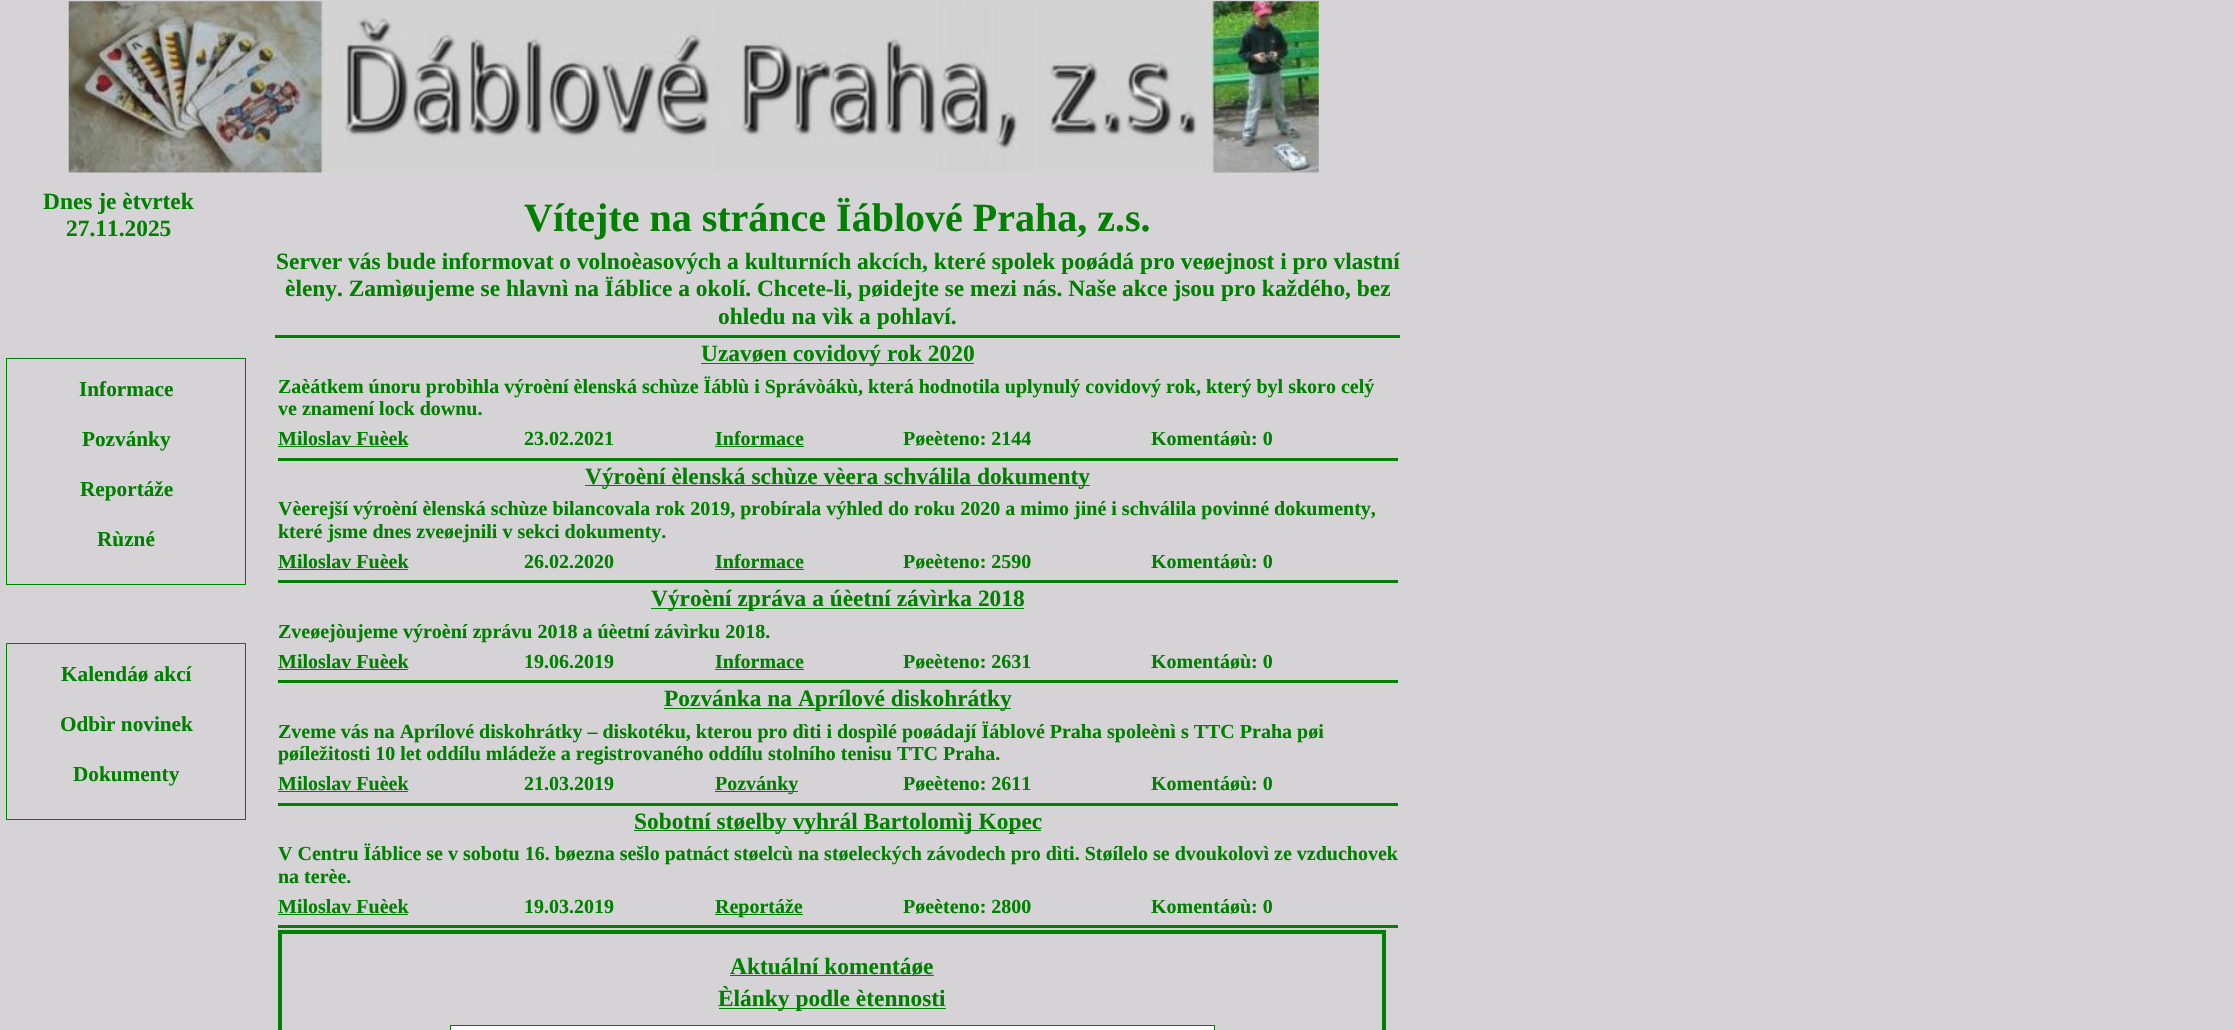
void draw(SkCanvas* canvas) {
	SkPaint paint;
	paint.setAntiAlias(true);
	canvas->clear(0xffd6d3d6);
	canvas->drawImageRect(SkImages::DeferredFromEncodedData(SkData::MakeFromFileName("img1.png")), SkRect::MakeXYWH(68, 1, 1251, 172), SkSamplingOptions());
	SkFont f1(fontMgr->matchFamilyStyle("Liberation Serif", SkFontStyle::Bold()), 23.4);
	f1.setSubpixel(true);
	paint.setColor(0xff008000);
	canvas->drawString("Dnes je ètvrtek", 43, 209, f1, paint);
	canvas->drawString("27.11.2025", 66, 236, f1, paint);
	paint.setStroke(true);
	paint.setStrokeWidth(1);
	canvas->drawRect(SkRect::MakeXYWH(6.5, 358.5, 239, 226), paint);
	SkFont f2(fontMgr->matchFamilyStyle("Liberation Serif", SkFontStyle::Bold()), 21.25);
	f2.setSubpixel(true);
	paint.setStroke(false);
	canvas->drawString("Informace", 79, 396, f2, paint);
	canvas->drawString("Pozvánky", 82, 446, f2, paint);
	canvas->drawString("Reportáže", 80, 496, f2, paint);
	canvas->drawString("Rùzné", 97, 546, f2, paint);
	paint.setStroke(true);
	canvas->drawRect(SkRect::MakeXYWH(6.5, 643.5, 239, 176), paint);
	paint.setStroke(false);
	canvas->drawString("Kalendáø akcí", 61, 681, f2, paint);
	canvas->drawString("Odbìr novinek", 60, 731, f2, paint);
	canvas->drawString("Dokumenty", 73, 781, f2, paint);
	SkFont f3(fontMgr->matchFamilyStyle("Liberation Serif", SkFontStyle::Bold()), 40);
	f3.setSubpixel(true);
	canvas->drawString("Vítejte na stránce Ïáblové Praha, z.s.", 524, 231, f3, paint);
	canvas->drawString("Server vás bude informovat o volnoèasových a kulturních akcích, které spolek poøádá pro veøejnost i pro vlastní", 276, 269, f1, paint);
	canvas->drawString("èleny. Zamìøujeme se hlavnì na Ïáblice a okolí. Chcete-li, pøidejte se mezi nás. Naše akce jsou pro každého, bez", 285, 296, f1, paint);
	canvas->drawString("ohledu na vìk a pohlaví.", 718, 324, f1, paint);
	canvas->drawRect(SkRect::MakeXYWH(275, 335, 1125, 3), paint);
	canvas->drawRect(SkRect::MakeXYWH(701, 363, 273, 1), paint);
	canvas->drawString("Uzavøen covidový rok 2020", 701, 361, f1, paint);
	SkFont f4(fontMgr->matchFamilyStyle("Liberation Serif", SkFontStyle::Bold()), 20);
	f4.setSubpixel(true);
	canvas->drawString("Zaèátkem únoru probìhla výroèní èlenská schùze Ïáblù i Správòákù, která hodnotila uplynulý covidový rok, který byl skoro celý", 278, 393, f4, paint);
	canvas->drawString("ve znamení lock downu.", 278, 415, f4, paint);
	canvas->drawString("Miloslav Fuèek", 278, 445, f4, paint);
	canvas->drawRect(SkRect::MakeXYWH(278, 446, 130, 1), paint);
	canvas->drawString("23.02.2021", 524, 445, f4, paint);
	canvas->drawString("Informace", 715, 445, f4, paint);
	canvas->drawRect(SkRect::MakeXYWH(715, 446, 89, 1), paint);
	canvas->drawString("Pøeèteno: 2144", 903, 445, f4, paint);
	canvas->drawString("Komentáøù: 0", 1151, 445, f4, paint);
	canvas->drawRect(SkRect::MakeXYWH(278, 458, 1120, 3), paint);
	canvas->drawRect(SkRect::MakeXYWH(585, 485, 505, 1), paint);
	canvas->drawString("Výroèní èlenská schùze vèera schválila dokumenty", 585, 484, f1, paint);
	canvas->drawString("Vèerejší výroèní èlenská schùze bilancovala rok 2019, probírala výhled do roku 2020 a mimo jiné i schválila povinné dokumenty,", 278, 515, f4, paint);
	canvas->drawString("které jsme dnes zveøejnili v sekci dokumenty.", 278, 538, f4, paint);
	canvas->drawString("Miloslav Fuèek", 278, 568, f4, paint);
	canvas->drawRect(SkRect::MakeXYWH(278, 569, 130, 1), paint);
	canvas->drawString("26.02.2020", 524, 568, f4, paint);
	canvas->drawString("Informace", 715, 568, f4, paint);
	canvas->drawRect(SkRect::MakeXYWH(715, 569, 89, 1), paint);
	canvas->drawString("Pøeèteno: 2590", 903, 568, f4, paint);
	canvas->drawString("Komentáøù: 0", 1151, 568, f4, paint);
	canvas->drawRect(SkRect::MakeXYWH(278, 580, 1120, 3), paint);
	canvas->drawRect(SkRect::MakeXYWH(651, 608, 373, 1), paint);
	canvas->drawString("Výroèní zpráva a úèetní závìrka 2018", 651, 606, f1, paint);
	canvas->drawString("Zveøejòujeme výroèní zprávu 2018 a úèetní závìrku 2018.", 278, 638, f4, paint);
	canvas->drawString("Miloslav Fuèek", 278, 668, f4, paint);
	canvas->drawRect(SkRect::MakeXYWH(278, 669, 130, 1), paint);
	canvas->drawString("19.06.2019", 524, 668, f4, paint);
	canvas->drawString("Informace", 715, 668, f4, paint);
	canvas->drawRect(SkRect::MakeXYWH(715, 669, 89, 1), paint);
	canvas->drawString("Pøeèteno: 2631", 903, 668, f4, paint);
	canvas->drawString("Komentáøù: 0", 1151, 668, f4, paint);
	canvas->drawRect(SkRect::MakeXYWH(278, 680, 1120, 3), paint);
	canvas->drawRect(SkRect::MakeXYWH(664, 708, 347, 1), paint);
	canvas->drawString("Pozvánka na Aprílové diskohrátky", 664, 706, f1, paint);
	canvas->drawString("Zveme vás na Aprílové diskohrátky – diskotéku, kterou pro dìti i dospìlé poøádají Ïáblové Praha spoleènì s TTC Praha pøi", 278, 738, f4, paint);
	canvas->drawString("pøíležitosti 10 let oddílu mládeže a registrovaného oddílu stolního tenisu TTC Praha.", 278, 760, f4, paint);
	canvas->drawString("Miloslav Fuèek", 278, 790, f4, paint);
	canvas->drawRect(SkRect::MakeXYWH(278, 791, 130, 1), paint);
	canvas->drawString("21.03.2019", 524, 790, f4, paint);
	canvas->drawRect(SkRect::MakeXYWH(715, 791, 83, 1), paint);
	canvas->drawString("Pozvánky", 715, 790, f4, paint);
	canvas->drawString("Pøeèteno: 2611", 903, 790, f4, paint);
	canvas->drawString("Komentáøù: 0", 1151, 790, f4, paint);
	canvas->drawRect(SkRect::MakeXYWH(278, 803, 1120, 3), paint);
	canvas->drawRect(SkRect::MakeXYWH(634, 830, 407, 1), paint);
	canvas->drawString("Sobotní støelby vyhrál Bartolomìj Kopec", 634, 829, f1, paint);
	canvas->drawString("V Centru Ïáblice se v sobotu 16. bøezna sešlo patnáct støelcù na støeleckých závodech pro dìti. Støílelo se dvoukolovì ze vzduchovek", 278, 860, f4, paint);
	canvas->drawString("na terèe.", 278, 883, f4, paint);
	canvas->drawString("Miloslav Fuèek", 278, 913, f4, paint);
	canvas->drawRect(SkRect::MakeXYWH(278, 914, 130, 1), paint);
	canvas->drawString("19.03.2019", 524, 913, f4, paint);
	canvas->drawRect(SkRect::MakeXYWH(715, 914, 88, 1), paint);
	canvas->drawString("Reportáže", 715, 913, f4, paint);
	canvas->drawString("Pøeèteno: 2800", 903, 913, f4, paint);
	canvas->drawString("Komentáøù: 0", 1151, 913, f4, paint);
	canvas->drawRect(SkRect::MakeXYWH(278, 925, 1120, 3), paint);
	paint.setStroke(true);
	paint.setStrokeWidth(4);
	canvas->drawRect(SkRect::MakeXYWH(280, 932, 1104, 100), paint);
	paint.setStroke(false);
	canvas->drawString("Aktuální komentáøe", 730, 974, f1, paint);
	canvas->drawRect(SkRect::MakeXYWH(730, 975, 204, 1), paint);
	canvas->drawRect(SkRect::MakeXYWH(719, 1008, 227, 1), paint);
	canvas->drawString("Èlánky podle ètennosti", 718, 1006, f1, paint);
	paint.setColor(0xffffffff);
	canvas->drawRect(SkRect::MakeXYWH(450.5, 1025.5, 764, 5), paint);
	paint.setStroke(true);
	paint.setStrokeWidth(1);
	paint.setColor(0xff008000);
	canvas->drawRect(SkRect::MakeXYWH(450.5, 1025.5, 764, 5), paint);
}
